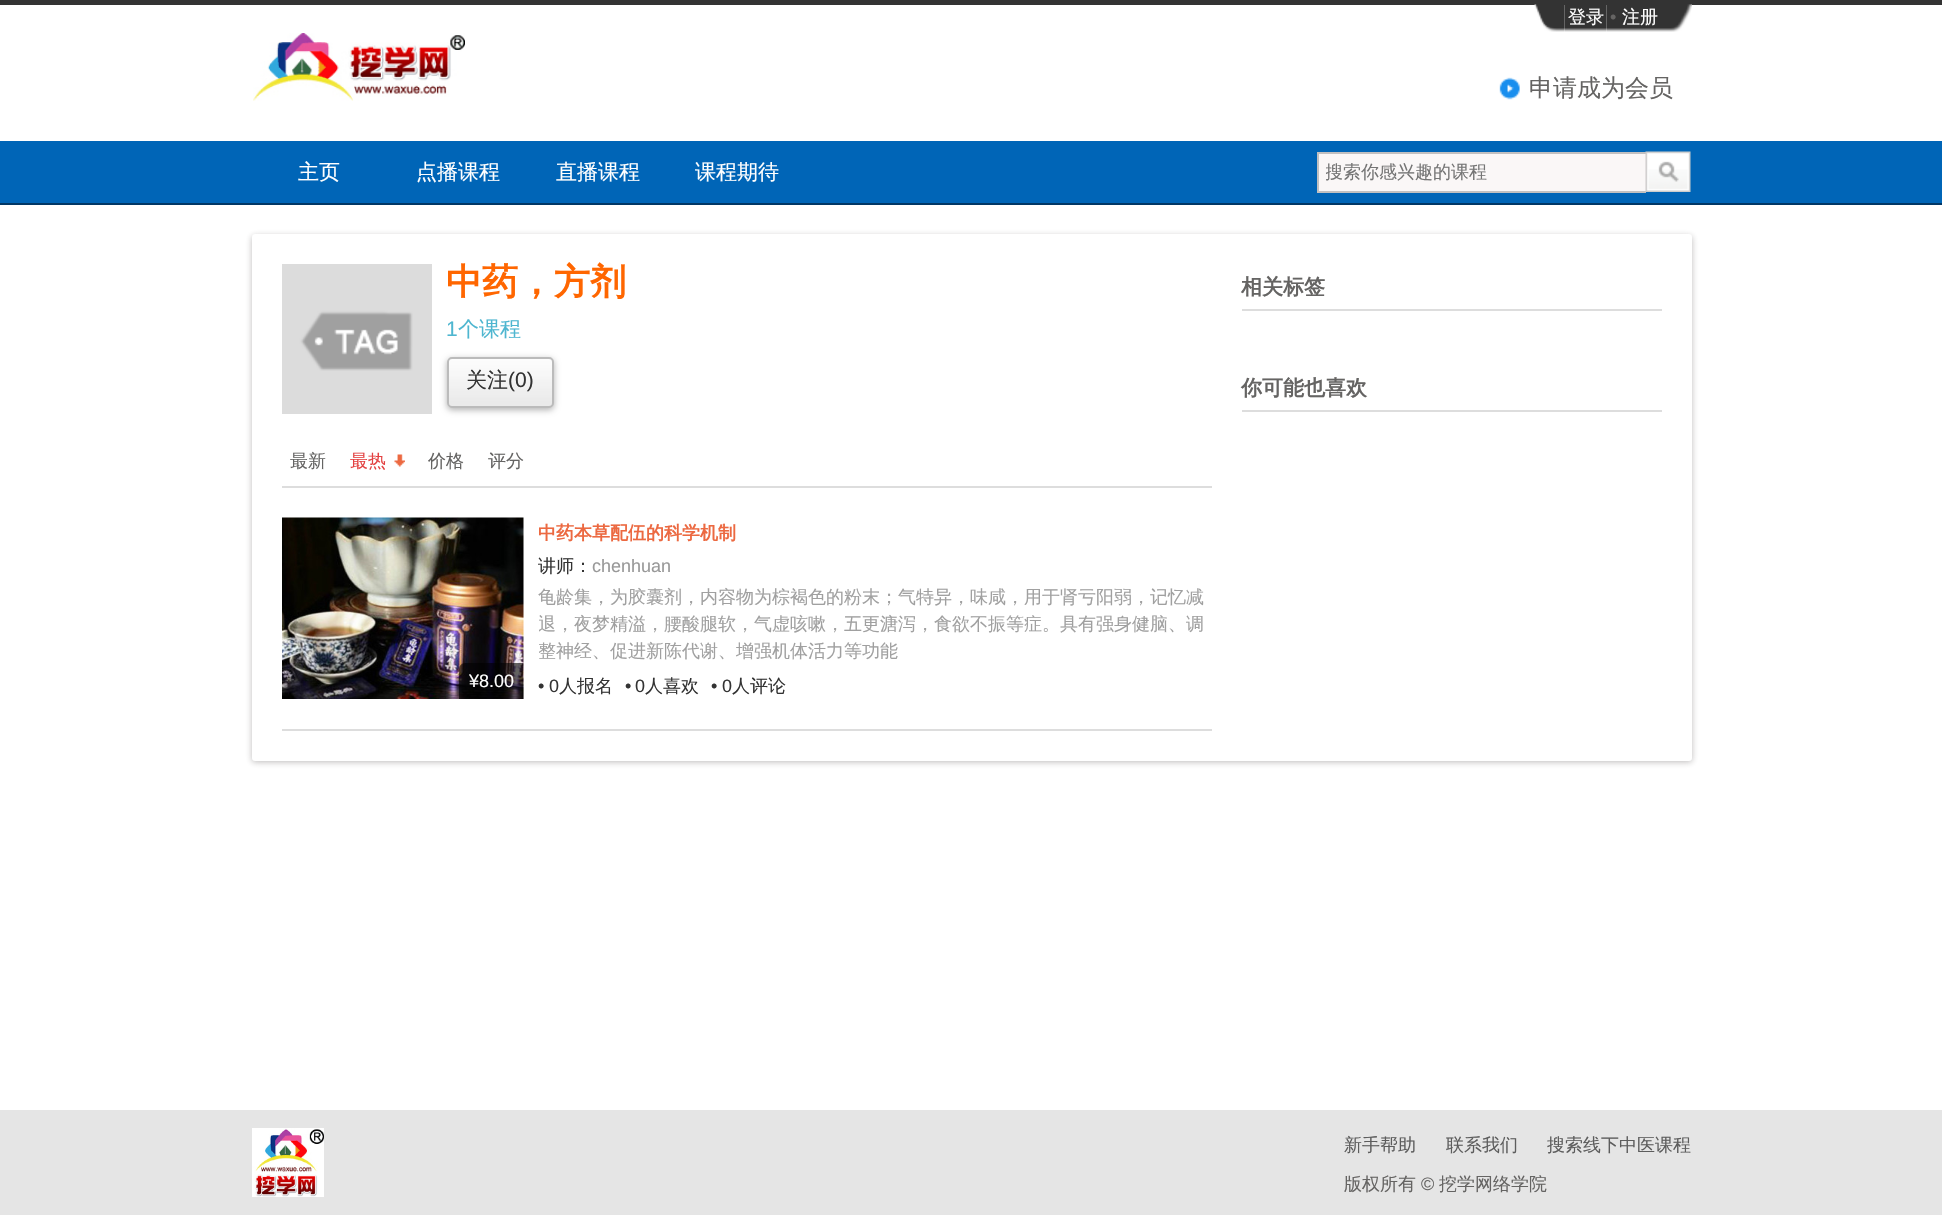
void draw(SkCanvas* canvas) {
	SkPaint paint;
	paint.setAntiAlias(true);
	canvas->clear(0xffffffff);
	paint.setColor(0xff333333);
	canvas->drawRect(SkRect::MakeXYWH(0, 0, 1942, 5), paint);
	paint.setColor(0xff013765);
	canvas->drawRect(SkRect::MakeXYWH(0, 203, 1942, 2), paint);
	canvas->drawImageRect(SkImages::DeferredFromEncodedData(SkData::MakeFromFileName("img3.png")), SkRect::MakeXYWH(1606, 5, 14, 27), SkSamplingOptions());
	canvas->drawImageRect(SkImages::DeferredFromEncodedData(SkData::MakeFromFileName("img2.png")), SkRect::MakeXYWH(1564, 5, 43, 27), SkSamplingOptions());
	canvas->drawImageRect(SkImages::DeferredFromEncodedData(SkData::MakeFromFileName("img1.png")), SkRect::MakeXYWH(1534, 4, 31, 28), SkSamplingOptions());
	SkFont f1(fontMgr->matchFamilyStyle("WenQuanYi Zen Hei", SkFontStyle(500, SkFontStyle::kNormal_Width, SkFontStyle::kUpright_Slant)), 18);
	f1.setSubpixel(true);
	paint.setColor(0xffffffff);
	canvas->drawString("登录", 1568, 23, f1, paint);
	SkFont f2(fontMgr->matchFamilyStyle("Liberation Sans", SkFontStyle::Normal()), 18);
	f2.setSubpixel(true);
	paint.setColor(0xff656463);
	canvas->drawString("•", 1610, 23, f2, paint);
	canvas->drawImageRect(SkImages::DeferredFromEncodedData(SkData::MakeFromFileName("img4.png")), SkRect::MakeXYWH(1620, 5, 42, 27), SkSamplingOptions());
	paint.setColor(0xffffffff);
	canvas->drawString("注册", 1622, 23, f1, paint);
	canvas->drawImageRect(SkImages::DeferredFromEncodedData(SkData::MakeFromFileName("img5.png")), SkRect::MakeXYWH(1662, 4, 30, 28), SkSamplingOptions());
	canvas->drawImageRect(SkImages::DeferredFromEncodedData(SkData::MakeFromFileName("img6.png")), SkRect::MakeXYWH(253, 33, 212, 68), SkSamplingOptions());
	canvas->drawImageRect(SkImages::DeferredFromEncodedData(SkData::MakeFromFileName("img7.png")), SkRect::MakeXYWH(1499, 77, 21, 23), SkSamplingOptions());
	SkFont f3(fontMgr->matchFamilyStyle("WenQuanYi Zen Hei", SkFontStyle(500, SkFontStyle::kNormal_Width, SkFontStyle::kUpright_Slant)), 24);
	f3.setSubpixel(true);
	paint.setColor(0xff656463);
	canvas->drawString("申请成为会员", 1529, 96, f3, paint);
	paint.setColor(0xff0065b7);
	canvas->drawRect(SkRect::MakeXYWH(0, 141, 1942, 62), paint);
	SkFont f4(fontMgr->matchFamilyStyle("WenQuanYi Zen Hei", SkFontStyle(500, SkFontStyle::kNormal_Width, SkFontStyle::kUpright_Slant)), 21);
	f4.setSubpixel(true);
	paint.setColor(0xffffffff);
	canvas->drawString("主页", 298, 179, f4, paint);
	canvas->drawString("点播课程", 416, 179, f4, paint);
	canvas->drawString("直播课程", 556, 179, f4, paint);
	canvas->drawString("课程期待", 695, 179, f4, paint);
	paint.setColor(0xfffaf7f7);
	canvas->drawRect(SkRect::MakeXYWH(1319, 154, 327, 37), paint);
	paint.setColor(0xffc2c0c0);
	canvas->drawRect(SkRect::MakeXYWH(1317, 152, 329, 2), paint);
	canvas->drawRect(SkRect::MakeXYWH(1317, 191, 329, 2), paint);
	canvas->drawRect(SkRect::MakeXYWH(1317, 152, 2, 40), paint);
	canvas->save();
	canvas->clipRect(SkRect::MakeXYWH(1326, 161, 312, 25));
	paint.setColor(0xff757575);
	canvas->drawString("搜索你感兴趣的课程", 1325, 178, f1, paint);
	canvas->restore();
	canvas->drawImageRect(SkImages::DeferredFromEncodedData(SkData::MakeFromFileName("img8.png")), SkRect::MakeXYWH(1645, 151, 46, 41), SkSamplingOptions());
	paint.setColor(0x4d221919);
	paint.setMaskFilter(SkMaskFilter::MakeBlur(kNormal_SkBlurStyle, 3));
	canvas->drawRoundRect(SkRect::MakeXYWH(252, 236, 1440, 526), 3, 3, paint);
	paint.setMaskFilter(nullptr);
	paint.setColor(0xffffffff);
	canvas->drawRoundRect(SkRect::MakeXYWH(252, 234, 1440, 527), 3, 3, paint);
	canvas->drawImageRect(SkImages::DeferredFromEncodedData(SkData::MakeFromFileName("img9.png")), SkRect::MakeXYWH(282, 264, 150, 150), SkSamplingOptions());
	SkFont f5(fontMgr->matchFamilyStyle("WenQuanYi Zen Hei", SkFontStyle::Bold()), 36);
	f5.setSubpixel(true);
	paint.setColor(0xffff6600);
	canvas->drawString("中药，方剂", 446, 294, f5, paint);
	SkFont f6(fontMgr->matchFamilyStyle("Liberation Sans", SkFontStyle::Normal()), 21);
	f6.setSubpixel(true);
	paint.setColor(0xff4eb6d0);
	canvas->drawString("1", 446, 336, f6, paint);
	canvas->drawString("个课程", 458, 336, f4, paint);
	paint.setColor(0x4d000000);
	paint.setMaskFilter(SkMaskFilter::MakeBlur(kNormal_SkBlurStyle, 3));
	canvas->drawRoundRect(SkRect::MakeXYWH(447, 359, 107, 51), 5, 5, paint);
	paint.setMaskFilter(nullptr);
	canvas->drawImageRect(SkImages::DeferredFromEncodedData(SkData::MakeFromFileName("img10.png")), SkRect::MakeXYWH(447, 358, 107, 49), SkSamplingOptions());
	paint.setStroke(true);
	paint.setStrokeWidth(2);
	paint.setColor(0xffbbbbbb);
	canvas->drawRoundRect(SkRect::MakeXYWH(448, 358, 105, 49), 4, 4, paint);
	paint.setStroke(false);
	paint.setColor(0xff333333);
	canvas->drawString("关注", 466, 387, f4, paint);
	canvas->drawString("(0)", 508, 387, f6, paint);
	paint.setColor(0xffdddddd);
	canvas->drawRect(SkRect::MakeXYWH(282, 486, 930, 2), paint);
	paint.setColor(0xff656463);
	canvas->drawString("最新", 290, 467, f1, paint);
	canvas->drawImageRect(SkImages::DeferredFromEncodedData(SkData::MakeFromFileName("img11.png")), SkRect::MakeXYWH(394, 454, 11, 13), SkSamplingOptions());
	paint.setColor(0xffe34141);
	canvas->drawString("最热", 350, 467, f1, paint);
	paint.setColor(0xff656463);
	canvas->drawString("价格", 428, 467, f1, paint);
	canvas->drawString("评分", 488, 467, f1, paint);
	paint.setColor(0xffdddddd);
	canvas->drawRect(SkRect::MakeXYWH(282, 729, 930, 2), paint);
	canvas->drawImageRect(SkImages::DeferredFromEncodedData(SkData::MakeFromFileName("img12.png")), SkRect::MakeXYWH(282, 517, 242, 182), SkSamplingOptions());
	canvas->drawImageRect(SkImages::DeferredFromEncodedData(SkData::MakeFromFileName("img13.png")), SkRect::MakeXYWH(459, 663, 65, 36), SkSamplingOptions());
	paint.setColor(0xffffffff);
	canvas->drawString("¥8.00", 469, 687, f2, paint);
	canvas->save();
	canvas->clipRect(SkRect::MakeXYWH(539, 518, 673, 30));
	SkFont f7(fontMgr->matchFamilyStyle("WenQuanYi Zen Hei", SkFontStyle::Bold()), 18);
	f7.setSubpixel(true);
	paint.setColor(0xffec6941);
	canvas->drawString("中药本草配伍的科学机制", 538, 539, f7, paint);
	canvas->restore();
	paint.setColor(0xff333333);
	canvas->drawString("讲师：", 538, 572, f1, paint);
	paint.setColor(0xff999999);
	canvas->drawString("chenhuan", 592, 572, f2, paint);
	paint.setColor(0xffa0a0a0);
	canvas->drawString("龟龄集，为胶囊剂，内容物为棕褐色的粉末；气特异，味咸，用于肾亏阳弱，记忆减", 538, 603, f1, paint);
	canvas->save();
	canvas->clipRect(SkRect::MakeXYWH(539, 584, 673, 81));
	canvas->drawString("退，夜梦精溢，腰酸腿软，气虚咳嗽，五更溏泻，食欲不振等症。具有强身健脑、调", 538, 630, f1, paint);
	canvas->drawString("整神经、促进新陈代谢、增强机体活力等功能", 538, 657, f1, paint);
	canvas->restore();
	paint.setColor(0xff333333);
	canvas->drawString("•", 538, 692, f2, paint);
	canvas->drawString("0", 549, 692, f2, paint);
	canvas->drawString("人报名", 559, 692, f1, paint);
	canvas->drawString("•", 625, 692, f2, paint);
	canvas->drawString("0", 635, 692, f2, paint);
	canvas->drawString("人喜欢", 645, 692, f1, paint);
	canvas->drawString("•", 711, 692, f2, paint);
	canvas->drawString("0", 722, 692, f2, paint);
	canvas->drawString("人评论", 732, 692, f1, paint);
	paint.setColor(0xffdddddd);
	canvas->drawRect(SkRect::MakeXYWH(1242, 309, 420, 2), paint);
	SkFont f8(fontMgr->matchFamilyStyle("WenQuanYi Zen Hei", SkFontStyle::Bold()), 21);
	f8.setSubpixel(true);
	paint.setColor(0xff656463);
	canvas->drawString("相关标签", 1241, 294, f8, paint);
	paint.setColor(0xffdddddd);
	canvas->drawRect(SkRect::MakeXYWH(1242, 410, 420, 2), paint);
	paint.setColor(0xff656463);
	canvas->drawString("你可能也喜欢", 1241, 395, f8, paint);
	paint.setColor(0xffe5e5e5);
	canvas->drawRect(SkRect::MakeXYWH(0, 1110, 1942, 105), paint);
	canvas->drawImageRect(SkImages::DeferredFromEncodedData(SkData::MakeFromFileName("img14.png")), SkRect::MakeXYWH(252, 1128, 72, 69), SkSamplingOptions());
	paint.setColor(0xff5d5d5d);
	canvas->drawString("新手帮助", 1344, 1151, f1, paint);
	canvas->drawString("联系我们", 1446, 1151, f1, paint);
	canvas->drawString("搜索线下中医课程", 1547, 1151, f1, paint);
	paint.setColor(0xff656463);
	canvas->drawString("版权所有", 1344, 1190, f1, paint);
	canvas->drawString("©", 1421, 1190, f2, paint);
	canvas->drawString("挖学网络学院", 1439, 1190, f1, paint);
}
